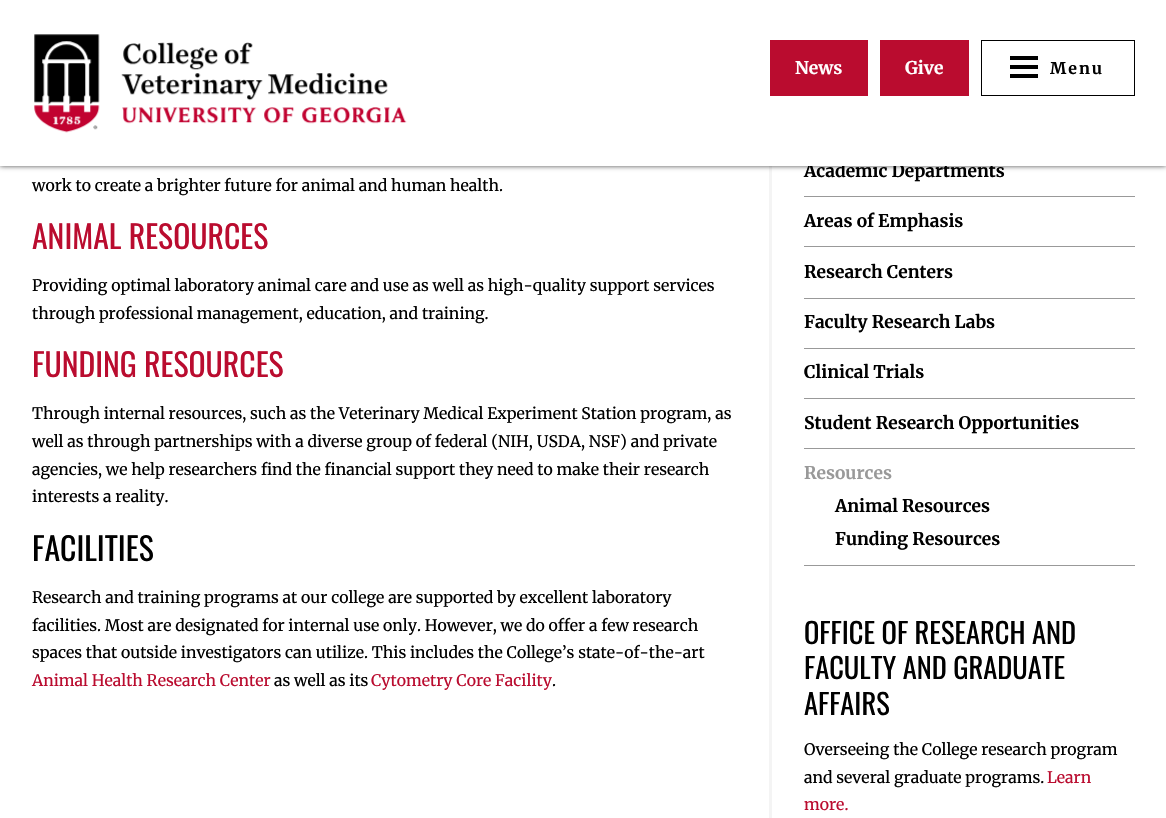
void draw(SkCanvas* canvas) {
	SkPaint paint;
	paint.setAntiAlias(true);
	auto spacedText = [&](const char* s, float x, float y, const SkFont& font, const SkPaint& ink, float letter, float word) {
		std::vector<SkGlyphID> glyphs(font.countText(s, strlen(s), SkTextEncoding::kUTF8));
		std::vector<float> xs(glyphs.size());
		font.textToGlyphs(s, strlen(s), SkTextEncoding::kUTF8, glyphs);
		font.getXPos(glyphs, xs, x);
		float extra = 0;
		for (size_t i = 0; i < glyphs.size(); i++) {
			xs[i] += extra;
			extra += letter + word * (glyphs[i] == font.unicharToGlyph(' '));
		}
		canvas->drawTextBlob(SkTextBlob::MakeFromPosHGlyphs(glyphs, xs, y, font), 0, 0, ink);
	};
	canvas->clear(0xffffffff);
	paint.setColor(0xfff4f4f4);
	canvas->drawRect(SkRect::MakeXYWH(769, 166, 3, 652), paint);
	paint.setColor(0xb3000000);
	paint.setMaskFilter(SkMaskFilter::MakeBlur(kNormal_SkBlurStyle, 2.5));
	canvas->drawRect(SkRect::MakeXYWH(0, 0, 1166, 166), paint);
	paint.setMaskFilter(nullptr);
	SkFont f1(fontMgr->matchFamilyStyle("Merriweather", SkFontStyle::Bold()), 17.4);
	f1.setSubpixel(true);
	paint.setColor(0xff000000);
	canvas->drawString("Academic Departments", 804, 177, f1, paint);
	paint.setColor(0xffffffff);
	canvas->drawRect(SkRect::MakeXYWH(0, 0, 1166, 166), paint);
	canvas->drawImageRect(SkImages::DeferredFromEncodedData(SkData::MakeFromFileName("img1.png")), SkRect::MakeXYWH(34, 34, 373, 99), SkSamplingOptions());
	paint.setColor(0xffba0c2f);
	canvas->drawRect(SkRect::MakeXYWH(770, 40, 98, 56), paint);
	SkFont f2(fontMgr->matchFamilyStyle("Merriweather", SkFontStyle::Bold()), 17.5);
	f2.setSubpixel(true);
	paint.setColor(0xffffffff);
	canvas->drawString("News", 795, 74, f2, paint);
	paint.setColor(0xffba0c2f);
	canvas->drawRect(SkRect::MakeXYWH(880, 40, 89, 56), paint);
	paint.setColor(0xffffffff);
	canvas->drawString("Give", 905, 74, f2, paint);
	paint.setStroke(true);
	paint.setStrokeWidth(1);
	paint.setColor(0xff000000);
	canvas->drawRect(SkRect::MakeXYWH(981.5, 40.5, 153, 55), paint);
	paint.setStroke(false);
	canvas->drawRect(SkRect::MakeXYWH(1010, 56, 28, 4), paint);
	canvas->drawRect(SkRect::MakeXYWH(1010, 65, 28, 4), paint);
	canvas->drawRect(SkRect::MakeXYWH(1010, 74, 28, 4), paint);
	SkFont f3(fontMgr->matchFamilyStyle("Merriweather", SkFontStyle::Bold()), 16);
	f3.setSubpixel(true);
	spacedText("Menu", 1050, 74, f3, paint, 2, 0);
	SkFont f4(fontMgr->matchFamilyStyle("Merriweather", SkFontStyle::Normal()), 15.85);
	f4.setSubpixel(true);
	canvas->drawString("work to create a brighter future for animal and human health.", 32, 191, f4, paint);
	SkFont f5(fontMgr->matchFamilyStyle("Oswald", SkFontStyle::Normal()), 31.75);
	f5.setSubpixel(true);
	paint.setColor(0xffba0c2f);
	canvas->drawString("ANIMAL RESOURCES", 32, 249, f5, paint);
	paint.setColor(0xff000000);
	canvas->drawString("Providing optimal laboratory animal care and use as well as high-quality support services", 32, 291, f4, paint);
	canvas->drawString("through professional management, education, and training.", 32, 319, f4, paint);
	paint.setColor(0xffba0c2f);
	canvas->drawString("FUNDING RESOURCES", 32, 377, f5, paint);
	paint.setColor(0xff000000);
	canvas->drawString("Through internal resources, such as the Veterinary Medical Experiment Station program, as", 32, 419, f4, paint);
	canvas->drawString("well as through partnerships with a diverse group of federal (NIH, USDA, NSF) and private", 32, 447, f4, paint);
	canvas->drawString("agencies, we help researchers find the financial support they need to make their research", 32, 475, f4, paint);
	canvas->drawString("interests a reality.", 32, 502, f4, paint);
	canvas->drawString("FACILITIES", 32, 561, f5, paint);
	canvas->drawString("Research and training programs at our college are supported by excellent laboratory", 32, 603, f4, paint);
	canvas->drawString("facilities. Most are designated for internal use only. However, we do offer a few research", 32, 631, f4, paint);
	canvas->drawString("spaces that outside investigators can utilize. This includes the College’s state-of-the-art", 32, 658, f4, paint);
	paint.setColor(0xffba0c2f);
	canvas->drawString("Animal Health Research Center", 32, 686, f4, paint);
	paint.setColor(0xff000000);
	canvas->drawString("as well as its", 274, 686, f4, paint);
	paint.setColor(0xffba0c2f);
	canvas->drawString("Cytometry Core Facility", 371, 686, f4, paint);
	paint.setColor(0xff000000);
	canvas->drawString(".", 552, 686, f4, paint);
	paint.setColor(0xff999999);
	canvas->drawRect(SkRect::MakeXYWH(804, 196, 331, 1), paint);
	canvas->drawRect(SkRect::MakeXYWH(804, 246, 331, 1), paint);
	paint.setColor(0xff000000);
	canvas->drawString("Areas of Emphasis", 804, 227, f1, paint);
	paint.setColor(0xff999999);
	canvas->drawRect(SkRect::MakeXYWH(804, 298, 331, 1), paint);
	paint.setColor(0xff000000);
	canvas->drawString("Research Centers", 804, 278, f1, paint);
	paint.setColor(0xff999999);
	canvas->drawRect(SkRect::MakeXYWH(804, 348, 331, 1), paint);
	paint.setColor(0xff000000);
	canvas->drawString("Faculty Research Labs", 804, 328, f1, paint);
	paint.setColor(0xff999999);
	canvas->drawRect(SkRect::MakeXYWH(804, 398, 331, 1), paint);
	paint.setColor(0xff000000);
	canvas->drawString("Clinical Trials", 804, 378, f1, paint);
	paint.setColor(0xff999999);
	canvas->drawRect(SkRect::MakeXYWH(804, 448, 331, 1), paint);
	paint.setColor(0xff000000);
	canvas->drawString("Student Research Opportunities", 804, 429, f1, paint);
	paint.setColor(0xff999999);
	canvas->drawRect(SkRect::MakeXYWH(804, 565, 331, 1), paint);
	canvas->drawString("Resources", 804, 479, f1, paint);
	paint.setColor(0xff000000);
	canvas->drawString("Animal Resources", 835, 512, f1, paint);
	canvas->drawString("Funding Resources", 835, 545, f1, paint);
	SkFont f6(fontMgr->matchFamilyStyle("Oswald", SkFontStyle::Normal()), 28.5);
	f6.setSubpixel(true);
	canvas->drawString("OFFICE OF RESEARCH AND", 804, 644, f6, paint);
	canvas->drawString("FACULTY AND GRADUATE", 804, 679, f6, paint);
	canvas->drawString("AFFAIRS", 804, 715, f6, paint);
	canvas->drawString("Overseeing the College research program", 804, 755, f4, paint);
	canvas->drawString("and several graduate programs.", 804, 783, f4, paint);
	paint.setColor(0xffba0c2f);
	canvas->drawString("Learn", 1047, 783, f4, paint);
	canvas->drawString("more.", 804, 810, f4, paint);
}
